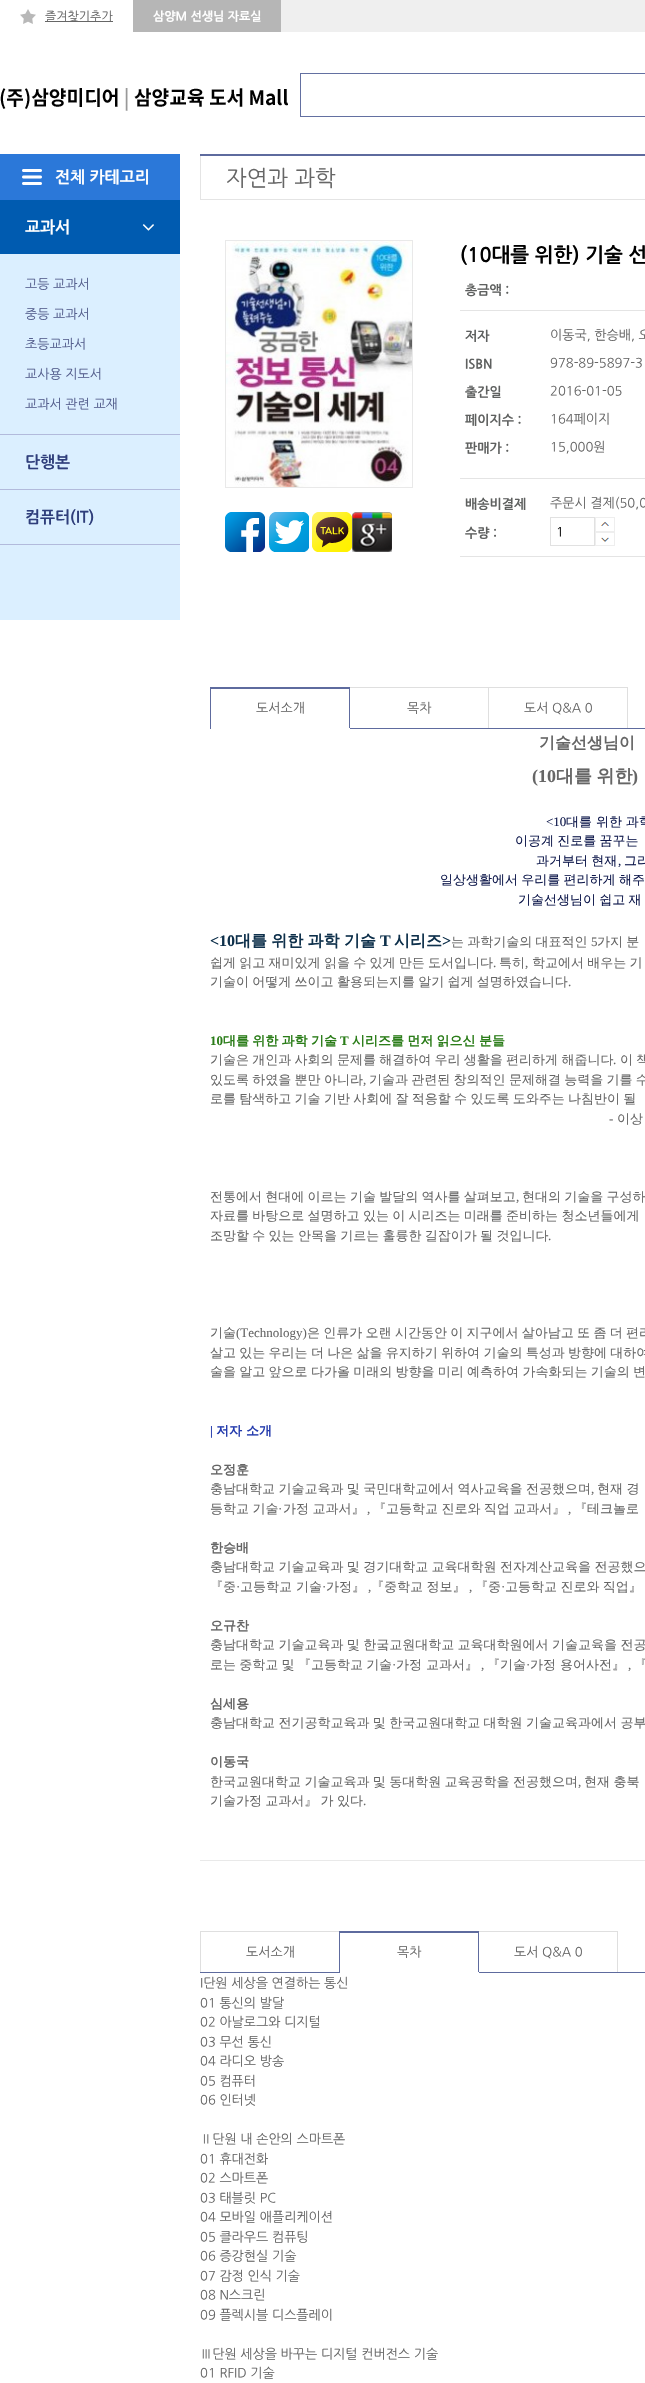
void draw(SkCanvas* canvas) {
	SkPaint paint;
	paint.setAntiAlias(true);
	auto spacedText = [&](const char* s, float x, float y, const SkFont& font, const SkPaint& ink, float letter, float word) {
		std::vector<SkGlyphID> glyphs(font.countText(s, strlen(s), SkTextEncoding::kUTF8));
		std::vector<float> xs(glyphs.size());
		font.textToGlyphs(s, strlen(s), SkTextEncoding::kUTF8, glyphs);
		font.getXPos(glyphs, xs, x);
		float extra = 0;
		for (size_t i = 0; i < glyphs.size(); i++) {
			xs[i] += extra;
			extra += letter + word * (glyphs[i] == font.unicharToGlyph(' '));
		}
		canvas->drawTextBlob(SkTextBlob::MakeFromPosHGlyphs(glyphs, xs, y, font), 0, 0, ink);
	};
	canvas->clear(0xffffffff);
	canvas->drawImageRect(SkImages::DeferredFromEncodedData(SkData::MakeFromFileName("img1.png")), SkRect::MakeXYWH(20, 9, 16, 15), SkSamplingOptions());
	paint.setColor(0xff666666);
	canvas->drawRect(SkRect::MakeXYWH(45, 21, 68, 1), paint);
	SkFont f1(fontMgr->matchFamilyStyle("NanumGothic", SkFontStyle::Normal()), 12);
	f1.setSubpixel(true);
	canvas->drawString("즐겨찾기추가", 45, 20, f1, paint);
	paint.setColor(0xffb6b6b6);
	canvas->drawRect(SkRect::MakeXYWH(133, 0, 148, 32), paint);
	SkFont f2(fontMgr->matchFamilyStyle("NanumGothic", SkFontStyle::Bold()), 12);
	f2.setSubpixel(true);
	paint.setColor(0xffffffff);
	canvas->drawString("삼양M 선생님 자료실", 153, 20, f2, paint);
	canvas->drawImageRect(SkImages::DeferredFromEncodedData(SkData::MakeFromFileName("img2.png")), SkRect::MakeXYWH(0, 88, 288, 23), SkSamplingOptions());
	paint.setStroke(true);
	paint.setStrokeWidth(1);
	paint.setColor(0xff6370a1);
	canvas->drawRect(SkRect::MakeXYWH(300.5, 73.5, 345, 43), paint);
	paint.setStroke(false);
	paint.setColor(0xffefefef);
	canvas->drawRect(SkRect::MakeXYWH(281, 0, 364, 32), paint);
	paint.setColor(0xff2b78d9);
	canvas->drawRect(SkRect::MakeXYWH(0, 154, 180, 46), paint);
	canvas->drawImageRect(SkImages::DeferredFromEncodedData(SkData::MakeFromFileName("img3.png")), SkRect::MakeXYWH(22, 169, 20, 16), SkSamplingOptions());
	SkFont f3(fontMgr->matchFamilyStyle("NanumGothic", SkFontStyle::Bold()), 16);
	f3.setSubpixel(true);
	paint.setColor(0xffffffff);
	canvas->drawString("전체 카테고리", 55, 182, f3, paint);
	paint.setColor(0xffdbefff);
	canvas->drawRect(SkRect::MakeXYWH(0, 254, 180, 366), paint);
	paint.setColor(0xffb2badc);
	canvas->drawRect(SkRect::MakeXYWH(0, 434, 180, 1), paint);
	paint.setColor(0xff005bb0);
	canvas->drawRect(SkRect::MakeXYWH(0, 200, 180, 54), paint);
	paint.setColor(0xffffffff);
	canvas->drawString("교과서", 25, 232, f3, paint);
	canvas->drawImageRect(SkImages::DeferredFromEncodedData(SkData::MakeFromFileName("img4.png")), SkRect::MakeXYWH(142, 224, 12, 7), SkSamplingOptions());
	SkFont f4(fontMgr->matchFamilyStyle("NanumGothic", SkFontStyle::Normal()), 13);
	f4.setSubpixel(true);
	paint.setColor(0xff555f8e);
	canvas->drawString("고등 교과서", 25, 288, f4, paint);
	canvas->drawString("중등 교과서", 25, 318, f4, paint);
	canvas->drawString("초등교과서", 25, 348, f4, paint);
	canvas->drawString("교사용 지도서", 25, 378, f4, paint);
	canvas->drawString("교과서 관련 교재", 25, 408, f4, paint);
	paint.setColor(0xffb2badc);
	canvas->drawRect(SkRect::MakeXYWH(0, 489, 180, 1), paint);
	paint.setColor(0xff2f3e7b);
	canvas->drawString("단행본", 25, 467, f3, paint);
	paint.setColor(0xffb2badc);
	canvas->drawRect(SkRect::MakeXYWH(0, 544, 180, 1), paint);
	paint.setColor(0xff2f3e7b);
	canvas->drawString("컴퓨터(IT)", 25, 522, f3, paint);
	paint.setColor(0xff5e6b9e);
	canvas->drawRect(SkRect::MakeXYWH(200, 154, 445, 2), paint);
	paint.setColor(0xffe4e4e4);
	canvas->drawRect(SkRect::MakeXYWH(200, 199, 445, 1), paint);
	canvas->drawRect(SkRect::MakeXYWH(200, 156, 1, 44), paint);
	SkFont f5(fontMgr->matchFamilyStyle("NanumGothic", SkFontStyle::Normal()), 22);
	f5.setSubpixel(true);
	paint.setColor(0xff666666);
	canvas->drawString("자연과 과학", 226, 185, f5, paint);
	paint.setStroke(true);
	paint.setColor(0xffe9e9e9);
	canvas->drawRect(SkRect::MakeXYWH(225.5, 240.5, 187, 247), paint);
	canvas->drawImageRect(SkImages::DeferredFromEncodedData(SkData::MakeFromFileName("img5.png")), SkRect::MakeXYWH(226, 241, 186, 246), SkSamplingOptions());
	SkFont f6(fontMgr->matchFamilyStyle("NanumGothic", SkFontStyle::Bold()), 20);
	f6.setSubpixel(true);
	paint.setStroke(false);
	paint.setColor(0xff000000);
	canvas->drawString("(10대를 위한) 기술 선", 460, 261, f6, paint);
	canvas->drawImageRect(SkImages::DeferredFromEncodedData(SkData::MakeFromFileName("img6.png")), SkRect::MakeXYWH(225, 512, 40, 40), SkSamplingOptions());
	canvas->drawImageRect(SkImages::DeferredFromEncodedData(SkData::MakeFromFileName("img7.png")), SkRect::MakeXYWH(269, 512, 40, 40), SkSamplingOptions());
	canvas->drawImageRect(SkImages::DeferredFromEncodedData(SkData::MakeFromFileName("img8.png")), SkRect::MakeXYWH(312, 512, 40, 40), SkSamplingOptions());
	canvas->drawImageRect(SkImages::DeferredFromEncodedData(SkData::MakeFromFileName("img9.png")), SkRect::MakeXYWH(352, 512, 40, 40), SkSamplingOptions());
	paint.setColor(0xffe4e4e4);
	canvas->drawRect(SkRect::MakeXYWH(460, 556, 185, 1), paint);
	SkFont f7(fontMgr->matchFamilyStyle("NanumGothic", SkFontStyle::Bold()), 13);
	f7.setSubpixel(true);
	paint.setColor(0xff5e605f);
	canvas->drawString("총금액 :", 465, 294, f7, paint);
	paint.setColor(0xffe4e4e4);
	canvas->drawRect(SkRect::MakeXYWH(460, 310, 185, 1), paint);
	paint.setColor(0xff5e605f);
	canvas->drawString("저자", 465, 340, f7, paint);
	paint.setColor(0xff666666);
	canvas->drawString("이동국, 한승배, 오", 550, 339, f4, paint);
	paint.setColor(0xff5e605f);
	canvas->drawString("ISBN", 465, 368, f7, paint);
	paint.setColor(0xff666666);
	canvas->drawString("978-89-5897-3", 550, 367, f4, paint);
	paint.setColor(0xff5e605f);
	canvas->drawString("출간일", 465, 396, f7, paint);
	paint.setColor(0xff666666);
	canvas->drawString("2016-01-05", 550, 395, f4, paint);
	paint.setColor(0xff5e605f);
	canvas->drawString("페이지수 :", 465, 424, f7, paint);
	paint.setColor(0xff666666);
	canvas->drawString("164페이지", 550, 423, f4, paint);
	paint.setColor(0xff5e605f);
	canvas->drawString("판매가 :", 465, 452, f7, paint);
	paint.setColor(0xff666666);
	canvas->drawString("15,000원", 550, 451, f4, paint);
	paint.setColor(0xffe4e4e4);
	canvas->drawRect(SkRect::MakeXYWH(460, 478, 185, 1), paint);
	paint.setColor(0xff5e605f);
	canvas->drawString("배송비결제", 465, 508, f7, paint);
	paint.setColor(0xff666666);
	canvas->drawString("주문시 결제(50,0", 550, 507, f4, paint);
	paint.setColor(0xff5e605f);
	canvas->drawString("수량 :", 465, 537, f7, paint);
	paint.setStroke(true);
	paint.setColor(0xffe1e1e1);
	canvas->drawRect(SkRect::MakeXYWH(550.5, 517.5, 44, 28), paint);
	paint.setStroke(false);
	paint.setColor(0xff000000);
	canvas->drawString("1", 556, 536, f4, paint);
	canvas->drawImageRect(SkImages::DeferredFromEncodedData(SkData::MakeFromFileName("img10.png")), SkRect::MakeXYWH(596, 518, 18, 13), SkSamplingOptions());
	paint.setStroke(true);
	paint.setColor(0xffeeeeee);
	canvas->drawRect(SkRect::MakeXYWH(595.5, 517.5, 19, 14), paint);
	canvas->drawImageRect(SkImages::DeferredFromEncodedData(SkData::MakeFromFileName("img11.png")), SkRect::MakeXYWH(596, 533, 18, 12), SkSamplingOptions());
	canvas->drawRect(SkRect::MakeXYWH(595.5, 532.5, 19, 13), paint);
	paint.setStroke(false);
	paint.setColor(0xffe9e9e9);
	canvas->drawRect(SkRect::MakeXYWH(200, 1860, 445, 1), paint);
	paint.setColor(0xff5e6b9e);
	canvas->drawRect(SkRect::MakeXYWH(350, 728, 295, 1), paint);
	paint.setColor(0xffdfdfdf);
	canvas->drawRect(SkRect::MakeXYWH(349, 687, 140, 1), paint);
	paint.setColor(0xff5e6b9e);
	canvas->drawRect(SkRect::MakeXYWH(210, 687, 140, 2), paint);
	canvas->drawRect(SkRect::MakeXYWH(349, 687, 1, 42), paint);
	paint.setColor(0xffffffff);
	canvas->drawRect(SkRect::MakeXYWH(349, 728, 1, 1), paint);
	paint.setColor(0xff5e6b9e);
	canvas->drawRect(SkRect::MakeXYWH(210, 687, 1, 42), paint);
	paint.setColor(0xff666666);
	canvas->drawString("도서소개", 256, 712, f4, paint);
	paint.setColor(0xffdfdfdf);
	canvas->drawRect(SkRect::MakeXYWH(488, 687, 1, 41), paint);
	paint.setColor(0xff666666);
	canvas->drawString("목차", 407, 712, f4, paint);
	paint.setColor(0xffdfdfdf);
	canvas->drawRect(SkRect::MakeXYWH(488, 687, 140, 1), paint);
	canvas->drawRect(SkRect::MakeXYWH(627, 687, 1, 41), paint);
	paint.setColor(0xff666666);
	canvas->drawString("도서 Q&A 0", 524, 712, f4, paint);
	SkFont f8(fontMgr->matchFamilyStyle("WenQuanYi Zen Hei", SkFontStyle::Bold()), 16);
	f8.setSubpixel(true);
	spacedText("기술선생님이", 539, 748, f8, paint, 0, -1);
	SkFont f9(fontMgr->matchFamilyStyle("Liberation Serif", SkFontStyle::Bold()), 18);
	f9.setSubpixel(true);
	canvas->drawString("(10", 532, 782, f9, paint);
	SkFont f10(fontMgr->matchFamilyStyle("WenQuanYi Zen Hei", SkFontStyle::Bold()), 18);
	f10.setSubpixel(true);
	spacedText("대를 위한", 556, 782, f10, paint, 0, -1);
	canvas->drawString(")", 632, 782, f9, paint);
	SkFont f11(fontMgr->matchFamilyStyle("Liberation Serif", SkFontStyle::Normal()), 13);
	f11.setSubpixel(true);
	paint.setColor(0xff0f194c);
	canvas->drawString("<10", 546, 826, f11, paint);
	SkFont f12(fontMgr->matchFamilyStyle("WenQuanYi Zen Hei", SkFontStyle(500, SkFontStyle::kNormal_Width, SkFontStyle::kUpright_Slant)), 13);
	f12.setSubpixel(true);
	canvas->drawString("대를 위한 과학", 566, 826, f12, paint);
	spacedText("이공계 진로를 꿈꾸는", 515, 845, f12, paint, 0, -0.6);
	spacedText("과거부터 현재", 536, 865, f12, paint, 0, -0.6);
	canvas->drawString(",", 618, 865, f11, paint);
	spacedText("그리", 624, 865, f12, paint, 0, -0.6);
	spacedText("일상생활에서 우리를 편리하게 해주", 440, 884, f12, paint, 0, -0.6);
	spacedText("기술선생님이 쉽고 재", 518, 904, f12, paint, 0, -0.6);
	SkFont f13(fontMgr->matchFamilyStyle("Liberation Serif", SkFontStyle::Bold()), 16);
	f13.setSubpixel(true);
	paint.setColor(0xff0e304b);
	canvas->drawString("<10", 210, 946, f13, paint);
	spacedText("대를 위한 과학 기술", 235, 946, f8, paint, 0, -0.5);
	canvas->drawString("T", 380, 946, f13, paint);
	canvas->drawString("시리즈", 394, 946, f8, paint);
	canvas->drawString(">", 442, 946, f13, paint);
	paint.setColor(0xff666666);
	spacedText("는 과학기술의 대표적인", 451, 946, f12, paint, 0, -0.6);
	canvas->drawString("5", 591, 946, f11, paint);
	spacedText("가지 분", 597, 946, f12, paint, 0, -0.6);
	spacedText("쉽게 읽고 재미있게 읽을 수 있게 만든 도서입니다", 210, 967, f12, paint, 0, -0.6);
	canvas->drawString(".", 493, 967, f11, paint);
	canvas->drawString("특히", 499, 967, f12, paint);
	canvas->drawString(",", 525, 967, f11, paint);
	spacedText("학교에서 배우는 기", 532, 967, f12, paint, 0, -0.6);
	spacedText("기술이 어떻게 쓰이고 활용되는지를 알기 쉽게 설명하였습니다", 210, 986, f12, paint, 0, -0.6);
	canvas->drawString(".", 568, 986, f11, paint);
	SkFont f14(fontMgr->matchFamilyStyle("Liberation Serif", SkFontStyle::Bold()), 13);
	f14.setSubpixel(true);
	paint.setColor(0xff2b7d19);
	canvas->drawString("10", 210, 1045, f14, paint);
	SkFont f15(fontMgr->matchFamilyStyle("WenQuanYi Zen Hei", SkFontStyle::Bold()), 13);
	f15.setSubpixel(true);
	spacedText("대를 위한 과학 기술", 223, 1045, f15, paint, 0, -0.6);
	canvas->drawString("T", 340, 1045, f14, paint);
	spacedText("시리즈를 먼저 읽으신 분들", 352, 1045, f15, paint, 0, -0.6);
	paint.setColor(0xff666666);
	spacedText("기술은 개인과 사회의 문제를 해결하여 우리 생활을 편리하게 해줍니다", 210, 1064, f12, paint, 0, -0.6);
	canvas->drawString(".", 613, 1064, f11, paint);
	spacedText("이 책", 620, 1064, f12, paint, 0, -0.6);
	spacedText("있도록 하였을 뿐만 아니라", 210, 1084, f12, paint, 0, -0.6);
	canvas->drawString(",", 363, 1084, f11, paint);
	spacedText("기술과 관련된 창의적인 문제해결 능력을 기를 수", 369, 1084, f12, paint, 0, -0.6);
	spacedText("로를 탐색하고 기술 기반 사회에 잘 적응할 수 있도록 도와주는 나침반이 될", 210, 1103, f12, paint, 0, -0.6);
	canvas->drawString("-", 609, 1123, f11, paint);
	canvas->drawString("이상", 617, 1123, f12, paint);
	spacedText("전통에서 현대에 이르는 기술 발달의 역사를 살펴보고", 210, 1201, f12, paint, 0, -0.6);
	canvas->drawString(",", 516, 1201, f11, paint);
	spacedText("현대의 기술을 구성하", 522, 1201, f12, paint, 0, -0.6);
	spacedText("자료를 바탕으로 설명하고 있는 이 시리즈는 미래를 준비하는 청소년들에게", 210, 1220, f12, paint, 0, -0.6);
	spacedText("조망할 수 있는 안목을 기르는 훌륭한 길잡이가 될 것입니다", 210, 1240, f12, paint, 0, -0.6);
	canvas->drawString(".", 548, 1240, f11, paint);
	canvas->drawString("기술", 210, 1337, f12, paint);
	canvas->drawString("(Technology)", 236, 1337, f11, paint);
	spacedText("은 인류가 오랜 시간동안 이 지구에서 살아남고 또 좀 더 편리", 307, 1337, f12, paint, 0, -0.6);
	spacedText("살고 있는 우리는 더 나은 삶을 유지하기 위하여 기술의 특성과 방향에 대하여", 210, 1357, f12, paint, 0, -0.6);
	spacedText("술을 알고 앞으로 다가올 미래의 방향을 미리 예측하여 가속화되는 기술의 변", 210, 1376, f12, paint, 0, -0.6);
	paint.setColor(0xff243bad);
	canvas->drawString("|", 210, 1435, f14, paint);
	canvas->drawString("저자 소개", 216, 1435, f15, paint);
	paint.setColor(0xff666666);
	canvas->drawString("오정훈", 210, 1474, f15, paint);
	spacedText("충남대학교 기술교육과 및 국민대학교에서 역사교육을 전공했으며", 210, 1493, f12, paint, 0, -0.5);
	canvas->drawString(",", 591, 1493, f11, paint);
	spacedText("현재 경", 597, 1493, f12, paint, 0, -0.5);
	spacedText("등학교 기술", 210, 1513, f12, paint, 0, -0.5);
	canvas->drawString("·", 278, 1513, f11, paint);
	spacedText("가정 교과서』", 283, 1513, f12, paint, 0, -0.5);
	spacedText("『고등학교 진로와 직업 교과서』", 373, 1513, f12, paint, 0, -0.5);
	spacedText("『테크놀로", 574, 1513, f12, paint, 0, -0.5);
	canvas->drawString(",", 367, 1513, f11, paint);
	canvas->drawString(",", 568, 1513, f11, paint);
	canvas->drawString("한승배", 210, 1552, f15, paint);
	spacedText("충남대학교 기술교육과 및 경기대학교 교육대학원 전자계산교육을 전공했으", 210, 1571, f12, paint, 0, -0.5);
	canvas->drawString("『중", 210, 1591, f12, paint);
	canvas->drawString("·", 236, 1591, f11, paint);
	canvas->drawString("고등학교 기술", 240, 1591, f12, paint);
	canvas->drawString("·", 322, 1591, f11, paint);
	canvas->drawString("가정』", 326, 1591, f12, paint);
	spacedText("『중학교 정보』", 371, 1591, f12, paint, 0, -0.5);
	canvas->drawString("『중", 475, 1591, f12, paint);
	canvas->drawString("·", 501, 1591, f11, paint);
	spacedText("고등학교 진로와 직업』", 505, 1591, f12, paint, 0, -0.5);
	canvas->drawString(",", 368, 1591, f11, paint);
	canvas->drawString(",", 469, 1591, f11, paint);
	canvas->drawString("오규찬", 210, 1630, f15, paint);
	spacedText("충남대학교 기술교육과 및 한궄교원대학교 교육대학원에서 기술교육을 전공", 210, 1649, f12, paint, 0, -0.5);
	spacedText("로는 중학교 및 『고등학교 기", 210, 1669, f12, paint, 0, -0.6);
	canvas->drawString("술", 379, 1669, f12, paint);
	canvas->drawString("·", 392, 1669, f11, paint);
	canvas->drawString("가정 교과서』", 396, 1669, f12, paint);
	canvas->drawString("『기술", 487, 1669, f12, paint);
	canvas->drawString("·", 526, 1669, f11, paint);
	canvas->drawString("가정 용어사전』", 530, 1669, f12, paint);
	canvas->drawString("『", 634, 1669, f12, paint);
	canvas->drawString(",", 481, 1669, f11, paint);
	canvas->drawString(",", 628, 1669, f11, paint);
	canvas->drawString("심세용", 210, 1708, f15, paint);
	spacedText("충남대학교 전기공학교육과 및 한국교원대학교 대학원 기술교육과에서 공부", 210, 1727, f12, paint, 0, -0.5);
	canvas->drawString("이동국", 210, 1766, f15, paint);
	spacedText("한국교원대학교 기술교육과 및 동대학원 교육공학을 전공했으며", 210, 1786, f12, paint, 0, -0.5);
	canvas->drawString(",", 578, 1786, f11, paint);
	spacedText("현재 충북", 584, 1786, f12, paint, 0, -0.5);
	spacedText("기술가정 교과서』 가 있다", 210, 1805, f12, paint, 0, -0.6);
	canvas->drawString(".", 363, 1805, f11, paint);
	paint.setColor(0xff5e6b9e);
	canvas->drawRect(SkRect::MakeXYWH(200, 1972, 445, 1), paint);
	paint.setColor(0xffdfdfdf);
	canvas->drawRect(SkRect::MakeXYWH(200, 1931, 140, 1), paint);
	canvas->drawRect(SkRect::MakeXYWH(200, 1931, 1, 41), paint);
	paint.setColor(0xff666666);
	canvas->drawString("도서소개", 246, 1956, f4, paint);
	paint.setColor(0xffdfdfdf);
	canvas->drawRect(SkRect::MakeXYWH(478, 1931, 140, 1), paint);
	paint.setColor(0xff5e6b9e);
	canvas->drawRect(SkRect::MakeXYWH(339, 1931, 140, 2), paint);
	canvas->drawRect(SkRect::MakeXYWH(478, 1931, 1, 42), paint);
	paint.setColor(0xffffffff);
	canvas->drawRect(SkRect::MakeXYWH(339, 1972, 140, 1), paint);
	paint.setColor(0xff5e6b9e);
	canvas->drawRect(SkRect::MakeXYWH(339, 1931, 1, 42), paint);
	paint.setColor(0xff666666);
	canvas->drawString("목차", 397, 1956, f4, paint);
	paint.setColor(0xffdfdfdf);
	canvas->drawRect(SkRect::MakeXYWH(617, 1931, 1, 41), paint);
	paint.setColor(0xff666666);
	canvas->drawString("도서 Q&A 0", 514, 1956, f4, paint);
	canvas->drawString("I단원 세상을 연결하는 통신", 200, 1987, f4, paint);
	canvas->drawString("01 통신의 발달", 200, 2007, f4, paint);
	canvas->drawString("02 아날로그와 디지털", 200, 2026, f4, paint);
	canvas->drawString("03 무선 통신", 200, 2046, f4, paint);
	canvas->drawString("04 라디오 방송", 200, 2065, f4, paint);
	canvas->drawString("05 컴퓨터", 200, 2085, f4, paint);
	canvas->drawString("06 인터넷", 200, 2104, f4, paint);
	canvas->drawString("Ⅱ단원 내 손안의 스마트폰", 200, 2143, f4, paint);
	canvas->drawString("01 휴대전화", 200, 2163, f4, paint);
	canvas->drawString("02 스마트폰", 200, 2182, f4, paint);
	canvas->drawString("03 태블릿 PC", 200, 2202, f4, paint);
	canvas->drawString("04 모바일 애플리케이션", 200, 2221, f4, paint);
	canvas->drawString("05 클라우드 컴퓨팅", 200, 2241, f4, paint);
	canvas->drawString("06 증강현실 기술", 200, 2260, f4, paint);
	canvas->drawString("07 감정 인식 기술", 200, 2280, f4, paint);
	canvas->drawString("08 N스크린", 200, 2299, f4, paint);
	canvas->drawString("09 플렉시블 디스플레이", 200, 2319, f4, paint);
	canvas->drawString("Ⅲ단원 세상을 바꾸는 디지털 컨버전스 기술", 200, 2358, f4, paint);
	canvas->drawString("01 RFID 기술", 200, 2377, f4, paint);
}
